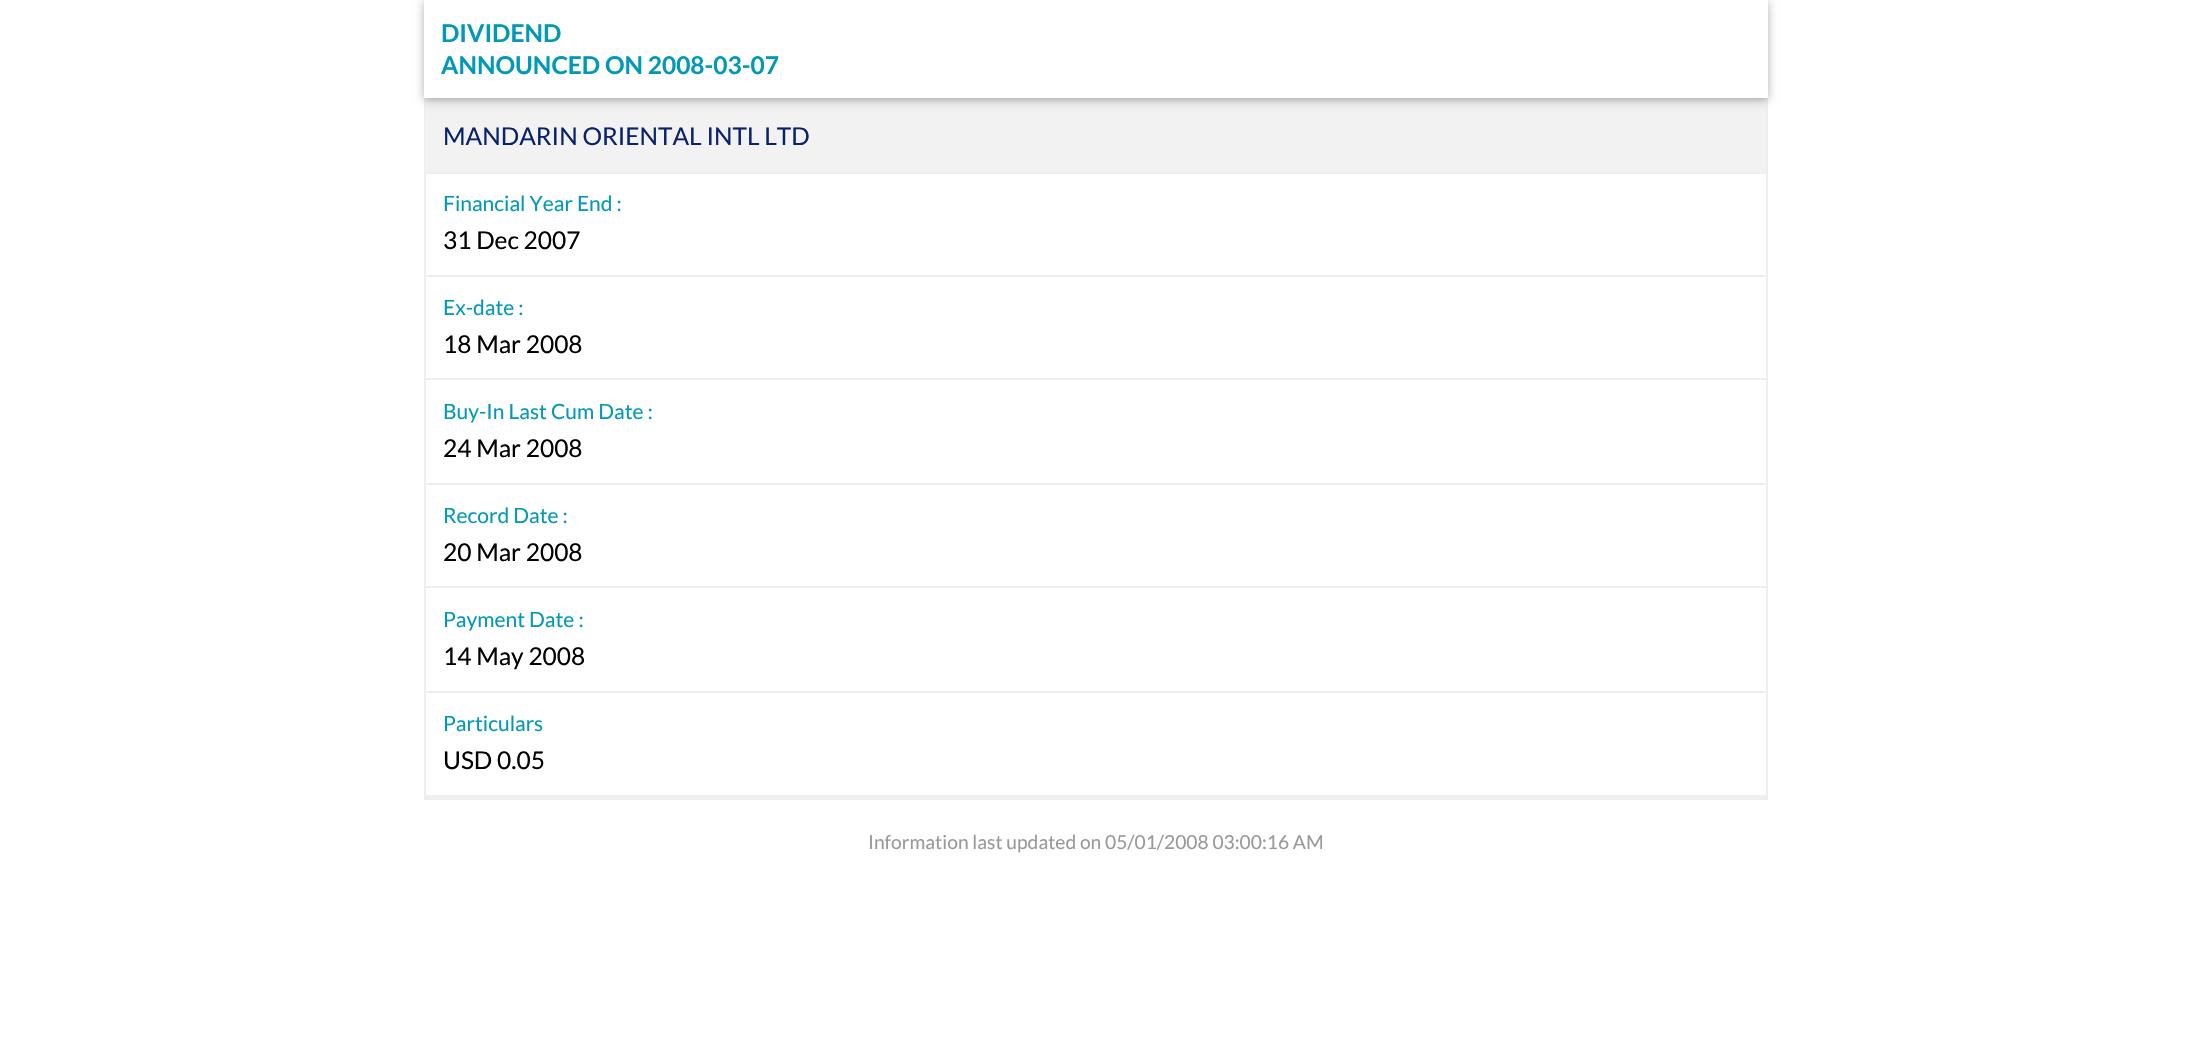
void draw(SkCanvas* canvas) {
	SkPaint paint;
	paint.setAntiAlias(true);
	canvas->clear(0xffffffff);
	paint.setStroke(true);
	paint.setStrokeWidth(2);
	paint.setColor(0xffeeeeee);
	canvas->drawRect(SkRect::MakeXYWH(425, 99, 1342, 698), paint);
	paint.setStroke(false);
	paint.setColor(0xfff2f2f2);
	canvas->drawRect(SkRect::MakeXYWH(425, 102, 1341, 70), paint);
	paint.setColor(0xffeeeeee);
	canvas->drawRect(SkRect::MakeXYWH(425, 100, 1341, 2), paint);
	paint.setColor(0x4d000000);
	paint.setMaskFilter(SkMaskFilter::MakeBlur(kNormal_SkBlurStyle, 4.5));
	canvas->drawRect(SkRect::MakeXYWH(424, 2, 1344, 98), paint);
	paint.setMaskFilter(nullptr);
	paint.setColor(0xffffffff);
	canvas->drawRect(SkRect::MakeXYWH(424, 0, 1344, 98), paint);
	SkFont f1(fontMgr->matchFamilyStyle("Lato", SkFontStyle::Bold()), 24.5);
	f1.setSubpixel(true);
	paint.setColor(0xff0099b7);
	canvas->drawString("DIVIDEND", 441, 42, f1, paint);
	canvas->drawString("ANNOUNCED ON 2008-03-07", 441, 74, f1, paint);
	paint.setColor(0xffeeeeee);
	canvas->drawRect(SkRect::MakeXYWH(425, 172, 1341, 2), paint);
	SkFont f2(fontMgr->matchFamilyStyle("Lato", SkFontStyle::Normal()), 24.5);
	f2.setSubpixel(true);
	paint.setColor(0xff0a226b);
	canvas->drawString("MANDARIN ORIENTAL INTL LTD", 443, 145, f2, paint);
	SkFont f3(fontMgr->matchFamilyStyle("Lato", SkFontStyle::Normal()), 21);
	f3.setSubpixel(true);
	paint.setColor(0xff0099b7);
	canvas->drawString("Financial Year End :", 443, 211, f3, paint);
	paint.setColor(0xffeeeeee);
	canvas->drawRect(SkRect::MakeXYWH(425, 275, 1341, 2), paint);
	paint.setColor(0xff000000);
	canvas->drawString("31 Dec 2007", 443, 249, f2, paint);
	paint.setColor(0xff0099b7);
	canvas->drawString("Ex-date :", 443, 315, f3, paint);
	paint.setColor(0xffeeeeee);
	canvas->drawRect(SkRect::MakeXYWH(425, 378, 1341, 2), paint);
	paint.setColor(0xff000000);
	canvas->drawString("18 Mar 2008", 443, 353, f2, paint);
	paint.setColor(0xff0099b7);
	canvas->drawString("Buy-In Last Cum Date :", 443, 419, f3, paint);
	paint.setColor(0xffeeeeee);
	canvas->drawRect(SkRect::MakeXYWH(425, 483, 1341, 2), paint);
	paint.setColor(0xff000000);
	canvas->drawString("24 Mar 2008", 443, 457, f2, paint);
	paint.setColor(0xff0099b7);
	canvas->drawString("Record Date :", 443, 523, f3, paint);
	paint.setColor(0xffeeeeee);
	canvas->drawRect(SkRect::MakeXYWH(425, 586, 1341, 2), paint);
	paint.setColor(0xff000000);
	canvas->drawString("20 Mar 2008", 443, 561, f2, paint);
	paint.setColor(0xff0099b7);
	canvas->drawString("Payment Date :", 443, 627, f3, paint);
	paint.setColor(0xffeeeeee);
	canvas->drawRect(SkRect::MakeXYWH(425, 691, 1341, 2), paint);
	paint.setColor(0xff000000);
	canvas->drawString("14 May 2008", 443, 665, f2, paint);
	paint.setColor(0xff0099b7);
	canvas->drawString("Particulars", 443, 731, f3, paint);
	paint.setColor(0xffeeeeee);
	canvas->drawRect(SkRect::MakeXYWH(425, 795, 1341, 1), paint);
	paint.setColor(0xff000000);
	canvas->drawString("USD 0.05", 443, 769, f2, paint);
	paint.setColor(0xffeeeeee);
	canvas->drawRect(SkRect::MakeXYWH(424, 798, 1344, 2), paint);
	SkFont f4(fontMgr->matchFamilyStyle("Lato", SkFontStyle::Normal()), 19.25);
	f4.setSubpixel(true);
	paint.setColor(0xff999999);
	canvas->drawString("Information last updated on 05/01/2008 03:00:16 AM", 868, 849, f4, paint);
}
